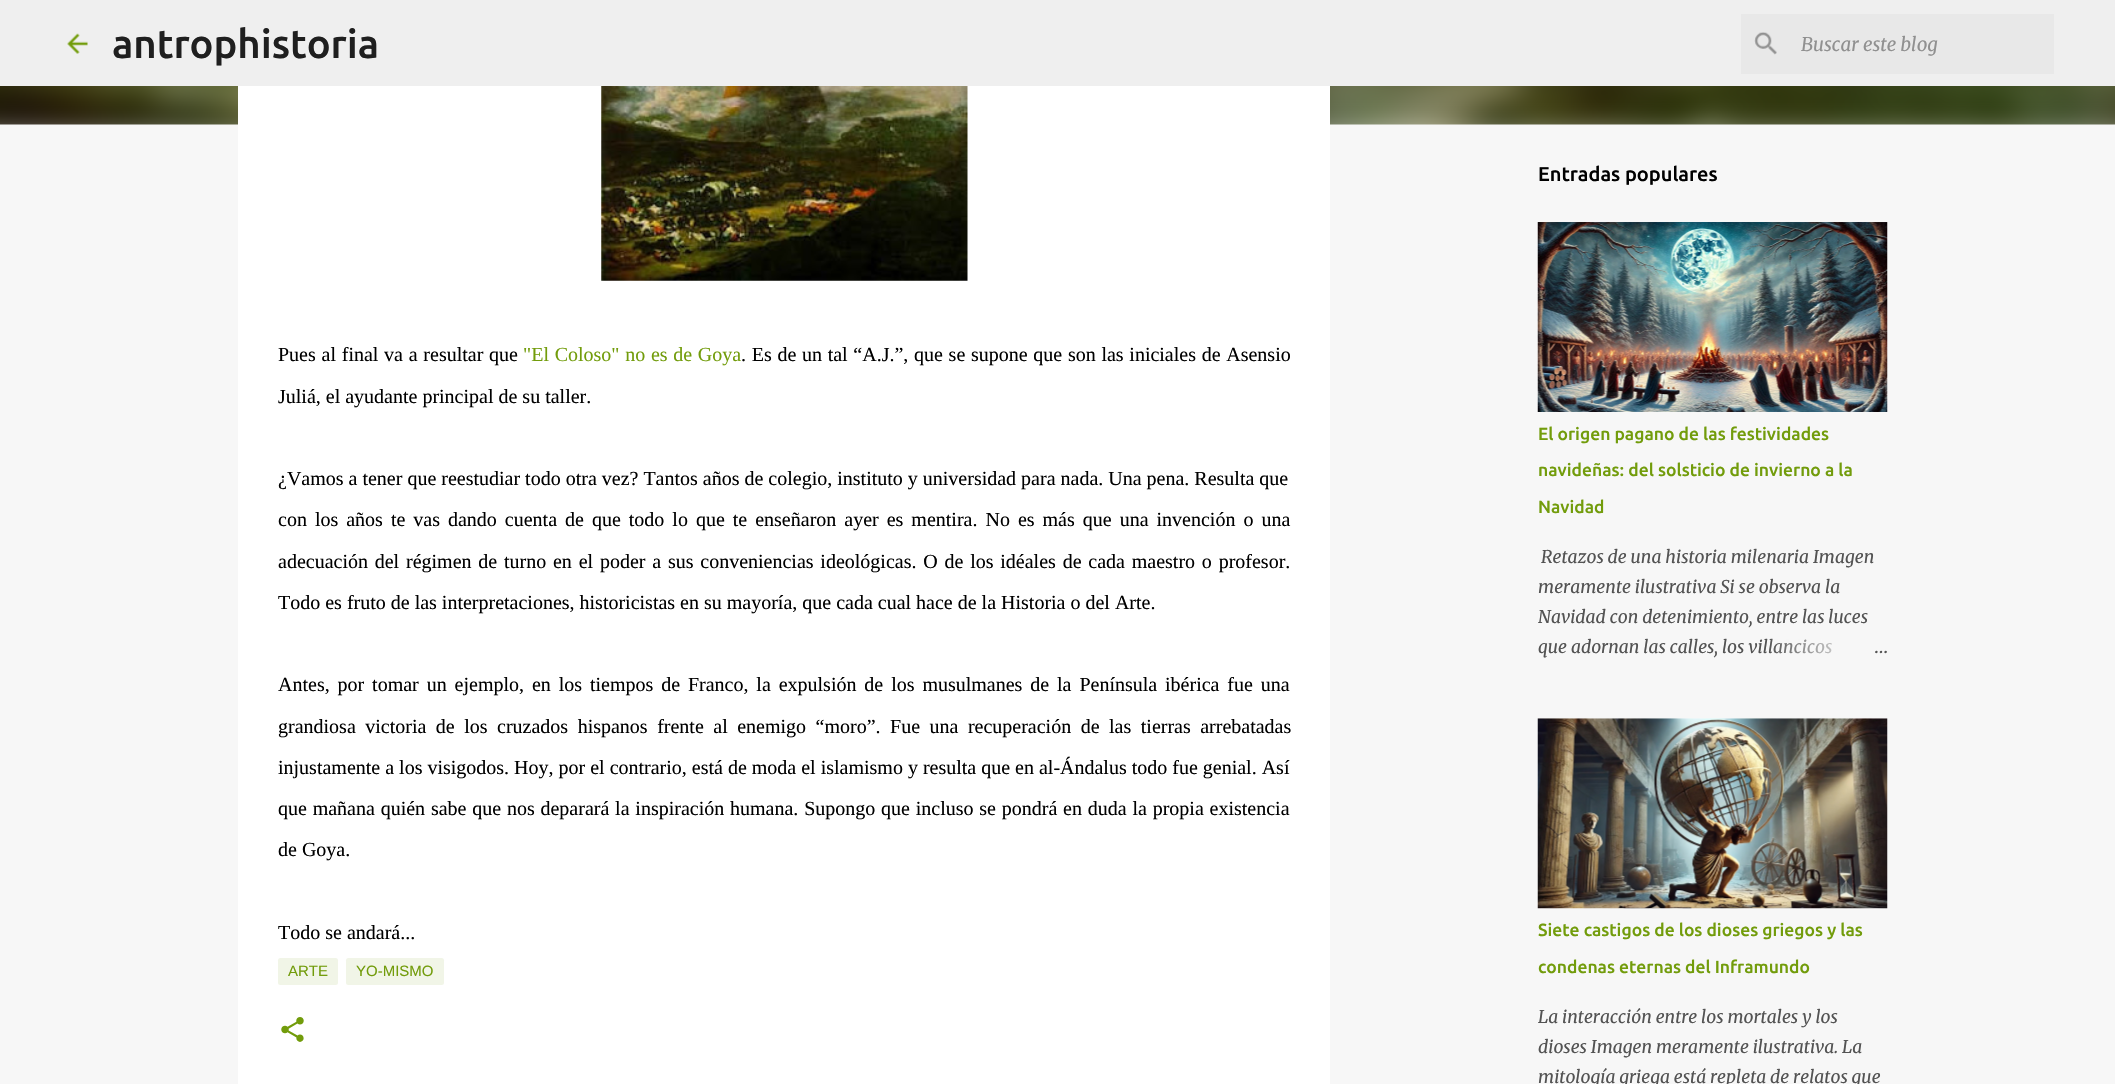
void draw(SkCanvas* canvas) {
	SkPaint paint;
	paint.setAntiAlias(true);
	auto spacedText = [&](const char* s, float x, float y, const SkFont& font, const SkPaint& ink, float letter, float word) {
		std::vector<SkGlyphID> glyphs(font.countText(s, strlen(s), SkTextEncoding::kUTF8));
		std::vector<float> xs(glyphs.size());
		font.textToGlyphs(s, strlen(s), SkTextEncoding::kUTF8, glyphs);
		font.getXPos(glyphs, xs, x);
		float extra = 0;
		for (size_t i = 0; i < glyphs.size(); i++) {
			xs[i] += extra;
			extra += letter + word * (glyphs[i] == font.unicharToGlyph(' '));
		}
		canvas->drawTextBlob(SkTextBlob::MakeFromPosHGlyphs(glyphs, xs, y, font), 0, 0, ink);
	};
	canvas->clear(0xfff7f7f7);
	paint.setColor(0xffefefef);
	canvas->drawRect(SkRect::MakeXYWH(0, 0, 2115, 86), paint);
	canvas->drawImageRect(SkImages::DeferredFromEncodedData(SkData::MakeFromFileName("img1.png")), SkRect::MakeXYWH(67, 33, 21, 21), SkSamplingOptions());
	SkFont f1(fontMgr->matchFamilyStyle("Ubuntu", SkFontStyle(500, SkFontStyle::kNormal_Width, SkFontStyle::kUpright_Slant)), 40);
	f1.setSubpixel(true);
	paint.setColor(0xff1f1f1f);
	canvas->drawString("antrophistoria", 112, 58, f1, paint);
	paint.setColor(0xffe8e8e8);
	canvas->drawRect(SkRect::MakeXYWH(1741, 14, 313, 60), paint);
	canvas->drawImageRect(SkImages::DeferredFromEncodedData(SkData::MakeFromFileName("img2.png")), SkRect::MakeXYWH(1754, 32, 23, 23), SkSamplingOptions());
	SkFont f2(fontMgr->matchFamilyStyle("Merriweather", SkFontStyle::Italic()), 18.75);
	f2.setSubpixel(true);
	paint.setColor(0xff909090);
	canvas->drawString("Buscar este blog", 1801, 51, f2, paint);
	canvas->drawImageRect(SkImages::DeferredFromEncodedData(SkData::MakeFromFileName("img7.png")), SkRect::MakeXYWH(0, 86, 2115, 39), SkSamplingOptions());
	paint.setColor(0xffffffff);
	canvas->drawRect(SkRect::MakeXYWH(238, 86, 1092, 998), paint);
	canvas->drawImageRect(SkImages::DeferredFromEncodedData(SkData::MakeFromFileName("img3.png")), SkRect::MakeXYWH(601, 86, 367, 195), SkSamplingOptions());
	SkFont f3(fontMgr->matchFamilyStyle("Liberation Serif", SkFontStyle::Normal()), 20);
	f3.setSubpixel(true);
	paint.setColor(0xff000000);
	spacedText("Pues al final va a resultar que", 278, 361, f3, paint, 0, 0.75);
	paint.setColor(0xff729c0b);
	spacedText("\"El Coloso\" no es de Goya", 523, 361, f3, paint, 0, 0.7);
	paint.setColor(0xff000000);
	spacedText(". Es de un tal “A.J.”, que se supone que son las iniciales de Asensio", 741, 361, f3, paint, 0, 0.7);
	canvas->drawString("Juliá, el ayudante principal de su taller.", 278, 403, f3, paint);
	canvas->drawString("¿Vamos a tener que reestudiar todo otra vez? Tantos años de colegio, instituto y universidad para nada. Una pena. Resulta que", 278, 485, f3, paint);
	spacedText("con los años te vas dando cuenta de que todo lo que te enseñaron ayer es mentira. No es más que una invención o una", 278, 526, f3, paint, 0, 3);
	spacedText("adecuación del régimen de turno en el poder a sus conveniencias ideológicas. O de los idéales de cada maestro o profesor.", 278, 568, f3, paint, 0, 1.8);
	canvas->drawString("Todo es fruto de las interpretaciones, historicistas en su mayoría, que cada cual hace de la Historia o del Arte.", 278, 609, f3, paint);
	spacedText("Antes, por tomar un ejemplo, en los tiempos de Franco, la expulsión de los musulmanes de la Península ibérica fue una", 278, 691, f3, paint, 0, 2.9);
	spacedText("grandiosa victoria de los cruzados hispanos frente al enemigo “moro”. Fue una recuperación de las tierras arrebatadas", 278, 733, f3, paint, 0, 4.5);
	canvas->drawString("injustamente a los visigodos. Hoy, por el contrario, está de moda el islamismo y resulta que en al-Ándalus todo fue genial. Así", 278, 774, f3, paint);
	spacedText("que mañana quién sabe que nos deparará la inspiración humana. Supongo que incluso se pondrá en duda la propia existencia", 278, 815, f3, paint, 0, 0.8);
	canvas->drawString("de Goya.", 278, 856, f3, paint);
	canvas->drawString("Todo se andará...", 278, 939, f3, paint);
	paint.setColor(0xfff1f5e7);
	canvas->drawRoundRect(SkRect::MakeXYWH(278, 958, 60, 27), 2.5, 2.5, paint);
	SkFont f4(fontMgr->matchFamilyStyle("Liberation Sans", SkFontStyle::Normal()), 15);
	f4.setSubpixel(true);
	paint.setColor(0xff729c0b);
	canvas->drawString("ARTE", 288, 976, f4, paint);
	paint.setColor(0xfff1f5e7);
	canvas->drawRoundRect(SkRect::MakeXYWH(346, 958, 98, 27), 2.5, 2.5, paint);
	paint.setColor(0xff729c0b);
	canvas->drawString("YO-MISMO", 356, 976, f4, paint);
	canvas->drawImageRect(SkImages::DeferredFromEncodedData(SkData::MakeFromFileName("img4.png")), SkRect::MakeXYWH(281, 1017, 23, 25), SkSamplingOptions());
	SkFont f5(fontMgr->matchFamilyStyle("Ubuntu", SkFontStyle(500, SkFontStyle::kNormal_Width, SkFontStyle::kUpright_Slant)), 20);
	f5.setSubpixel(true);
	paint.setColor(0xff000000);
	canvas->drawString("Entradas populares", 1538, 181, f5, paint);
	canvas->drawImageRect(SkImages::DeferredFromEncodedData(SkData::MakeFromFileName("img5.png")), SkRect::MakeXYWH(1537, 222, 351, 190), SkSamplingOptions());
	SkFont f6(fontMgr->matchFamilyStyle("Ubuntu", SkFontStyle(500, SkFontStyle::kNormal_Width, SkFontStyle::kUpright_Slant)), 17.5);
	f6.setSubpixel(true);
	paint.setColor(0xff729c0b);
	canvas->drawString("El origen pagano de las festividades", 1538, 440, f6, paint);
	canvas->drawString("navideñas: del solsticio de invierno a la", 1538, 476, f6, paint);
	canvas->drawString("Navidad", 1538, 513, f6, paint);
	SkFont f7(fontMgr->matchFamilyStyle("Merriweather", SkFontStyle::Italic()), 17.5);
	f7.setSubpixel(true);
	paint.setColor(0xff535353);
	canvas->drawString("Retazos de una historia milenaria Imagen", 1541, 563, f7, paint);
	canvas->drawString("meramente ilustrativa Si se observa la", 1538, 593, f7, paint);
	canvas->drawString("Navidad con detenimiento, entre las luces", 1538, 623, f7, paint);
	canvas->drawString("que adornan las calles, los villancicos", 1538, 653, f7, paint);
	{
		const SkColor colors[] = {0xfff7f7f7, 0xfff7f7f7, 0x00f7f7f7};
		const float stops[] = {0, 0.2, 1};
		const SkPoint ends[] = {{1888, 646}, {1768, 646}};
		paint.setShader(SkGradientShader::MakeLinear(ends, colors, stops, 3, SkTileMode::kClamp));
		paint.setAlpha(255);
	}
	canvas->drawRect(SkRect::MakeXYWH(1770, 639, 62, 15), paint);
	SkFont f8(fontMgr->matchFamilyStyle("Merriweather", SkFontStyle(300, SkFontStyle::kNormal_Width, SkFontStyle::kUpright_Slant)), 17.5);
	f8.setSubpixel(true);
	paint.setShader(nullptr);
	paint.setColor(0xff535353);
	canvas->drawString("…", 1874, 653, f8, paint);
	canvas->drawImageRect(SkImages::DeferredFromEncodedData(SkData::MakeFromFileName("img6.png")), SkRect::MakeXYWH(1537, 718, 351, 191), SkSamplingOptions());
	paint.setColor(0xff729c0b);
	canvas->drawString("Siete castigos de los dioses griegos y las", 1538, 936, f6, paint);
	canvas->drawString("condenas eternas del Inframundo", 1538, 973, f6, paint);
	paint.setColor(0xff535353);
	canvas->drawString("La interacción entre los mortales y los", 1538, 1023, f7, paint);
	canvas->drawString("dioses Imagen meramente ilustrativa. La", 1538, 1053, f7, paint);
	canvas->drawString("mitología griega está repleta de relatos que", 1538, 1083, f7, paint);
}
